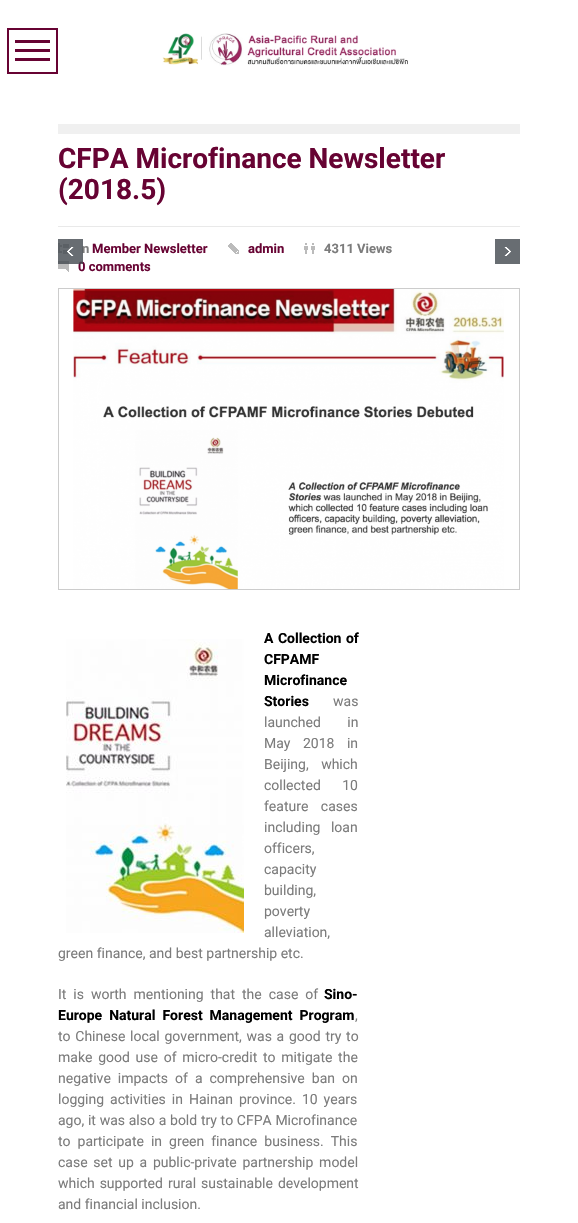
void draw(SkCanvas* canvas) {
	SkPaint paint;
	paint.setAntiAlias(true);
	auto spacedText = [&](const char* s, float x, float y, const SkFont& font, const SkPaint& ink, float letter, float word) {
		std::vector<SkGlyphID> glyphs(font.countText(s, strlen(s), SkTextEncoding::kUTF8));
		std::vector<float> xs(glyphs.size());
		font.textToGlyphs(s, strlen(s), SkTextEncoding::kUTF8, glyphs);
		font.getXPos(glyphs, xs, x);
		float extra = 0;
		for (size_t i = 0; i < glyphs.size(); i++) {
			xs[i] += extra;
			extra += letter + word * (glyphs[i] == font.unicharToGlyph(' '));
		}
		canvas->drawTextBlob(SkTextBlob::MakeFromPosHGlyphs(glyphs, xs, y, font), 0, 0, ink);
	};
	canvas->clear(0xffffffff);
	paint.setStroke(true);
	paint.setStrokeWidth(2);
	paint.setColor(0xff670333);
	canvas->drawRect(SkRect::MakeXYWH(8, 29, 49, 44), paint);
	paint.setStroke(false);
	canvas->drawRect(SkRect::MakeXYWH(15, 40, 35, 3), paint);
	canvas->drawRect(SkRect::MakeXYWH(15, 49, 35, 3), paint);
	canvas->drawRect(SkRect::MakeXYWH(15, 58, 35, 3), paint);
	canvas->drawImageRect(SkImages::DeferredFromEncodedData(SkData::MakeFromFileName("img1.png")), SkRect::MakeXYWH(162, 33, 246, 33), SkSamplingOptions());
	paint.setColor(0xfff0f0f0);
	canvas->drawRect(SkRect::MakeXYWH(58, 124, 462, 10), paint);
	SkFont f1(fontMgr->matchFamilyStyle("Roboto", SkFontStyle::Bold()), 28);
	f1.setSubpixel(true);
	paint.setColor(0xff670333);
	canvas->drawString("CFPA Microfinance Newsletter", 58, 168, f1, paint);
	canvas->drawString("(2018.5)", 58, 199, f1, paint);
	paint.setColor(0xffe9e9e9);
	canvas->drawRect(SkRect::MakeXYWH(58, 226, 462, 1), paint);
	canvas->drawImageRect(SkImages::DeferredFromEncodedData(SkData::MakeFromFileName("img2.png")), SkRect::MakeXYWH(58, 243, 11, 11), SkSamplingOptions());
	SkFont f2(fontMgr->matchFamilyStyle("Roboto", SkFontStyle::Bold()), 13);
	f2.setSubpixel(true);
	paint.setColor(0xff7c7c7c);
	canvas->drawString("n", 82, 253, f2, paint);
	paint.setColor(0xff670333);
	canvas->drawString("Member Newsletter", 92, 253, f2, paint);
	canvas->drawImageRect(SkImages::DeferredFromEncodedData(SkData::MakeFromFileName("img3.png")), SkRect::MakeXYWH(228, 243, 11, 11), SkSamplingOptions());
	canvas->drawString("admin", 248, 253, f2, paint);
	canvas->drawImageRect(SkImages::DeferredFromEncodedData(SkData::MakeFromFileName("img4.png")), SkRect::MakeXYWH(304, 243, 11, 11), SkSamplingOptions());
	paint.setColor(0xff7c7c7c);
	canvas->drawString("4311 Views", 324, 253, f2, paint);
	canvas->drawImageRect(SkImages::DeferredFromEncodedData(SkData::MakeFromFileName("img5.png")), SkRect::MakeXYWH(58, 261, 11, 11), SkSamplingOptions());
	paint.setColor(0xff670333);
	canvas->drawString("0 comments", 78, 271, f2, paint);
	paint.setStroke(true);
	paint.setStrokeWidth(1);
	paint.setColor(0xffcccccc);
	canvas->drawRect(SkRect::MakeXYWH(58.5, 288.5, 461, 301), paint);
	canvas->drawImageRect(SkImages::DeferredFromEncodedData(SkData::MakeFromFileName("img6.png")), SkRect::MakeXYWH(73, 289, 431, 300), SkSamplingOptions());
	canvas->drawImageRect(SkImages::DeferredFromEncodedData(SkData::MakeFromFileName("img7.png")), SkRect::MakeXYWH(66, 639, 178, 294), SkSamplingOptions());
	SkFont f3(fontMgr->matchFamilyStyle("Roboto", SkFontStyle::Bold()), 14);
	f3.setSubpixel(true);
	paint.setStroke(false);
	paint.setColor(0xff000000);
	spacedText("A Collection of", 264, 643, f3, paint, 0, 1);
	canvas->drawString("CFPAMF", 264, 664, f3, paint);
	canvas->drawString("Microfinance", 264, 685, f3, paint);
	canvas->drawString("Stories", 264, 706, f3, paint);
	SkFont f4(fontMgr->matchFamilyStyle("Roboto", SkFontStyle::Normal()), 14);
	f4.setSubpixel(true);
	paint.setColor(0xff7c7c7c);
	canvas->drawString("was", 333, 706, f4, paint);
	spacedText("launched in", 264, 727, f4, paint, 0, 23);
	spacedText("May 2018 in", 264, 748, f4, paint, 0, 9);
	spacedText("Beijing, which", 264, 769, f4, paint, 0, 9);
	spacedText("collected 10", 264, 790, f4, paint, 0, 18);
	spacedText("feature cases", 264, 811, f4, paint, 0, 9);
	spacedText("including loan", 264, 832, f4, paint, 0, 7);
	canvas->drawString("officers,", 264, 853, f4, paint);
	canvas->drawString("capacity", 264, 874, f4, paint);
	canvas->drawString("building,", 264, 895, f4, paint);
	canvas->drawString("poverty", 264, 916, f4, paint);
	canvas->drawString("alleviation,", 264, 937, f4, paint);
	canvas->drawString("green finance, and best partnership etc.", 58, 958, f4, paint);
	spacedText("It is worth mentioning that the case of", 58, 999, f4, paint, 0, 3.5);
	paint.setColor(0xff000000);
	canvas->drawString("Sino-", 324, 999, f3, paint);
	spacedText("Europe Natural Forest Management Program", 58, 1020, f3, paint, 0, 3.5);
	paint.setColor(0xff7c7c7c);
	canvas->drawString(",", 355, 1020, f4, paint);
	spacedText("to Chinese local government, was a good try to", 58, 1041, f4, paint, 0, 1.25);
	spacedText("make good use of micro-credit to mitigate the", 58, 1062, f4, paint, 0, 2.25);
	spacedText("negative impacts of a comprehensive ban on", 58, 1083, f4, paint, 0, 3.5);
	spacedText("logging activities in Hainan province. 10 years", 58, 1104, f4, paint, 0, 2.5);
	spacedText("ago, it was also a bold try to CFPA Microfinance", 58, 1125, f4, paint, 0, 0.25);
	spacedText("to participate in green finance business. This", 58, 1146, f4, paint, 0, 3.5);
	spacedText("case set up a public-private partnership model", 58, 1167, f4, paint, 0, 2.25);
	spacedText("which supported rural sustainable development", 58, 1188, f4, paint, 0, 1.5);
	canvas->drawString("and financial inclusion.", 58, 1209, f4, paint);
	paint.setColor(0xcc42494f);
	canvas->drawRect(SkRect::MakeXYWH(58, 239, 25, 25), paint);
	canvas->drawImageRect(SkImages::DeferredFromEncodedData(SkData::MakeFromFileName("img8.png")), SkRect::MakeXYWH(67, 247, 7, 9), SkSamplingOptions());
	paint.setColor(0xff686d72);
	canvas->drawRect(SkRect::MakeXYWH(495, 239, 25, 25), paint);
	canvas->drawImageRect(SkImages::DeferredFromEncodedData(SkData::MakeFromFileName("img9.png")), SkRect::MakeXYWH(504, 247, 7, 9), SkSamplingOptions());
}
